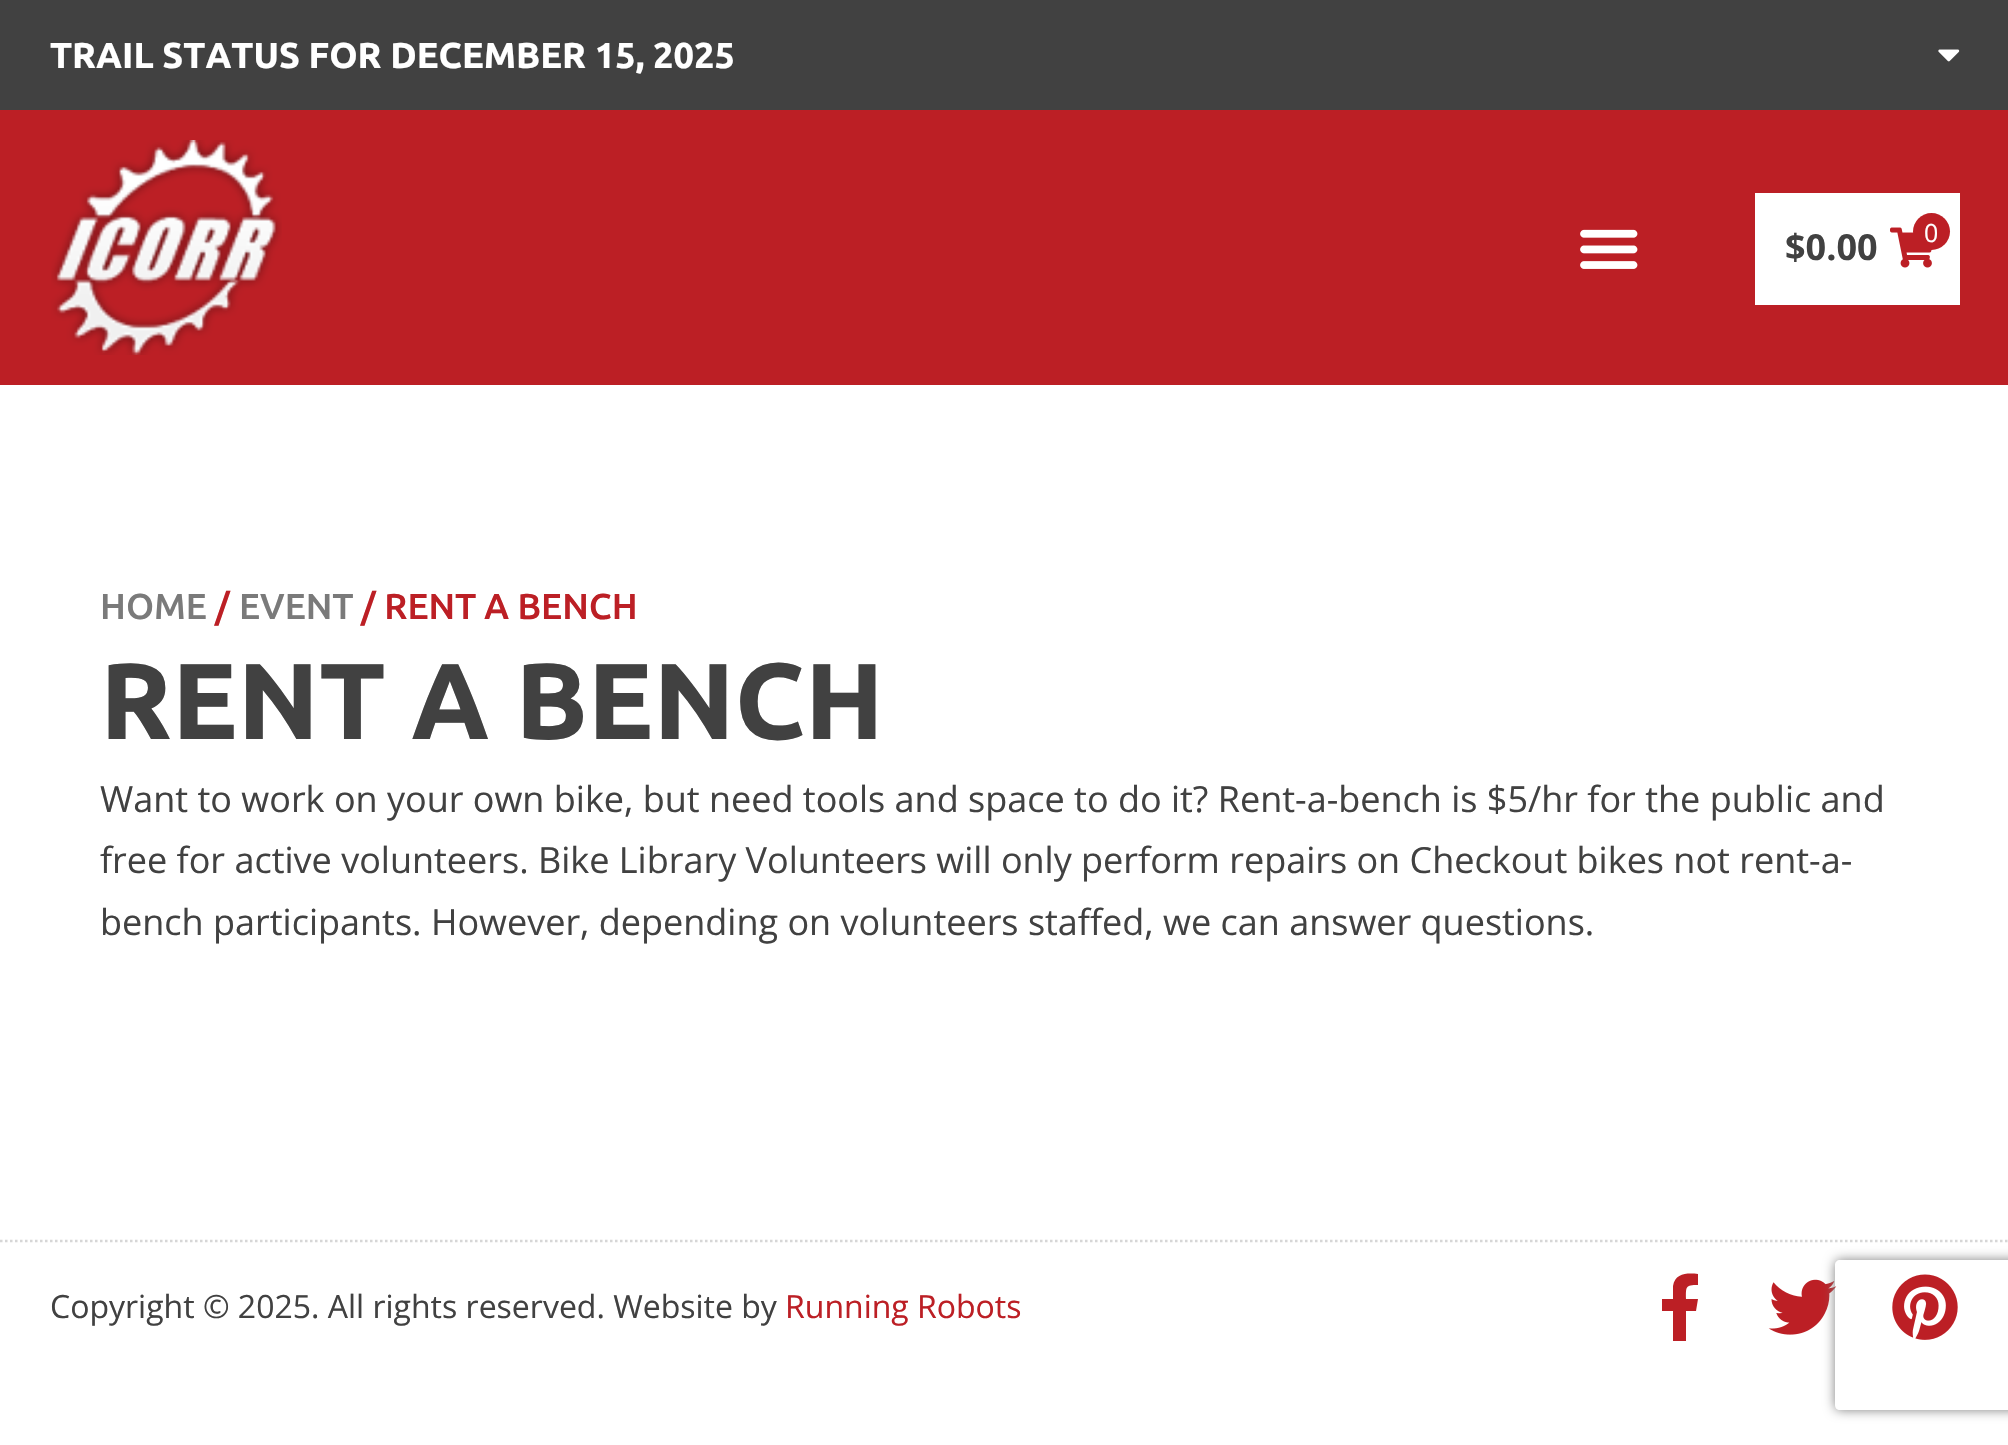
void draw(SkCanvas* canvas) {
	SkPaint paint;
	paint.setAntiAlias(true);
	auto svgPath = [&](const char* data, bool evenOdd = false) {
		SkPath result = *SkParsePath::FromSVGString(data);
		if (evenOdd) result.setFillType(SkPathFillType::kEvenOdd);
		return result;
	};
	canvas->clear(0xffffffff);
	paint.setColor(0xff414141);
	canvas->drawRect(SkRect::MakeXYWH(0, 0, 2008, 110), paint);
	SkFont f1(fontMgr->matchFamilyStyle("Ubuntu", SkFontStyle::Bold()), 36);
	f1.setSubpixel(true);
	paint.setColor(0xffffffff);
	canvas->drawString("TRAIL STATUS FOR DECEMBER 15, 2025", 50, 68, f1, paint);
	canvas->drawImageRect(SkImages::DeferredFromEncodedData(SkData::MakeFromFileName("img1.png")), SkRect::MakeXYWH(1938, 49, 22, 13), SkSamplingOptions());
	paint.setColor(0xffbc1f25);
	canvas->drawRect(SkRect::MakeXYWH(0, 110, 2008, 275), paint);
	canvas->drawImageRect(SkImages::DeferredFromEncodedData(SkData::MakeFromFileName("img2.png")), SkRect::MakeXYWH(51, 140, 231, 215), SkSamplingOptions());
	canvas->drawImageRect(SkImages::DeferredFromEncodedData(SkData::MakeFromFileName("img3.png")), SkRect::MakeXYWH(1580, 229, 58, 40), SkSamplingOptions());
	paint.setColor(0xffffffff);
	canvas->drawRect(SkRect::MakeXYWH(1755, 193, 205, 112), paint);
	SkFont f2(fontMgr->matchFamilyStyle("Open Sans", SkFontStyle::Bold()), 36);
	f2.setSubpixel(true);
	paint.setColor(0xff414141);
	canvas->drawString("$0.00", 1785, 260, f2, paint);
	canvas->drawImageRect(SkImages::DeferredFromEncodedData(SkData::MakeFromFileName("img4.png")), SkRect::MakeXYWH(1890, 227, 42, 41), SkSamplingOptions());
	paint.setColor(0xffbc1f25);
	canvas->drawCircle(1931.5, 231.5, 18.5, paint);
	SkFont f3(fontMgr->matchFamilyStyle("Open Sans", SkFontStyle::Normal()), 25);
	f3.setSubpixel(true);
	paint.setColor(0xffffffff);
	canvas->drawString("0", 1924, 242, f3, paint);
	SkFont f4(fontMgr->matchFamilyStyle("Ubuntu", SkFontStyle(500, SkFontStyle::kNormal_Width, SkFontStyle::kUpright_Slant)), 36);
	f4.setSubpixel(true);
	paint.setColor(0xff7a7a7a);
	canvas->drawString("HOME", 100, 619, f4, paint);
	paint.setColor(0xffbc1f25);
	canvas->drawString("/", 215, 619, f4, paint);
	paint.setColor(0xff7a7a7a);
	canvas->drawString("EVENT", 239, 619, f4, paint);
	paint.setColor(0xffbc1f25);
	canvas->drawString("/ RENT A BENCH", 361, 619, f4, paint);
	SkFont f5(fontMgr->matchFamilyStyle("Ubuntu", SkFontStyle::Bold()), 108);
	f5.setSubpixel(true);
	paint.setColor(0xff414141);
	canvas->drawString("RENT A BENCH", 100, 739, f5, paint);
	SkFont f6(fontMgr->matchFamilyStyle("Open Sans", SkFontStyle::Normal()), 36);
	f6.setSubpixel(true);
	canvas->drawString("Want to work on your own bike, but need tools and space to do it? Rent-a-bench is $5/hr for the public and", 100, 812, f6, paint);
	canvas->drawString("free for active volunteers. Bike Library Volunteers will only perform repairs on Checkout bikes not rent-a-", 100, 873, f6, paint);
	canvas->drawString("bench participants. However, depending on volunteers staffed, we can answer questions.", 100, 935, f6, paint);
	paint.setStroke(true);
	paint.setStrokeWidth(2.5);
	paint.setColor(0xffd6d6d6);
	paint.setPathEffect(SkDashPathEffect::Make({{2.5f, 2.5f}}, 0));
	canvas->drawPath(svgPath("M0 1241H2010"), paint);
	paint.setPathEffect(nullptr);
	SkFont f7(fontMgr->matchFamilyStyle("Open Sans", SkFontStyle::Normal()), 32);
	f7.setSubpixel(true);
	paint.setStroke(false);
	paint.setColor(0xff414141);
	canvas->drawString("Copyright © 2025. All rights reserved. Website by", 50, 1318, f7, paint);
	paint.setColor(0xffbc1f25);
	canvas->drawString("Running Robots", 785, 1318, f7, paint);
	canvas->drawPath(svgPath("M1696 1311H1686V1341H1673V1311H1662V1299H1673V1286C1675 1273 1687 1273 1698 1274V1285C1685 1285 1686 1287 1686 1299H1698Z"), paint);
	canvas->drawImageRect(SkImages::DeferredFromEncodedData(SkData::MakeFromFileName("img5.png")), SkRect::MakeXYWH(1768, 1279, 69, 56), SkSamplingOptions());
	canvas->drawImageRect(SkImages::DeferredFromEncodedData(SkData::MakeFromFileName("img6.png")), SkRect::MakeXYWH(1892, 1274, 66, 66), SkSamplingOptions());
	canvas->save();
	canvas->clipPath(svgPath("M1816 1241H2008V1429H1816ZM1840 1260H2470C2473 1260 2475 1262 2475 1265V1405C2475 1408 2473 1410 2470 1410H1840C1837 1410 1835 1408 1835 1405V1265C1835 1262 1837 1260 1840 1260Z", true), true);
	paint.setColor(0xff808080);
	paint.setMaskFilter(SkMaskFilter::MakeBlur(kNormal_SkBlurStyle, 6));
	canvas->drawRoundRect(SkRect::MakeXYWH(1835, 1260, 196, 150), 5, 5, paint);
	paint.setMaskFilter(nullptr);
	canvas->restore();
}
